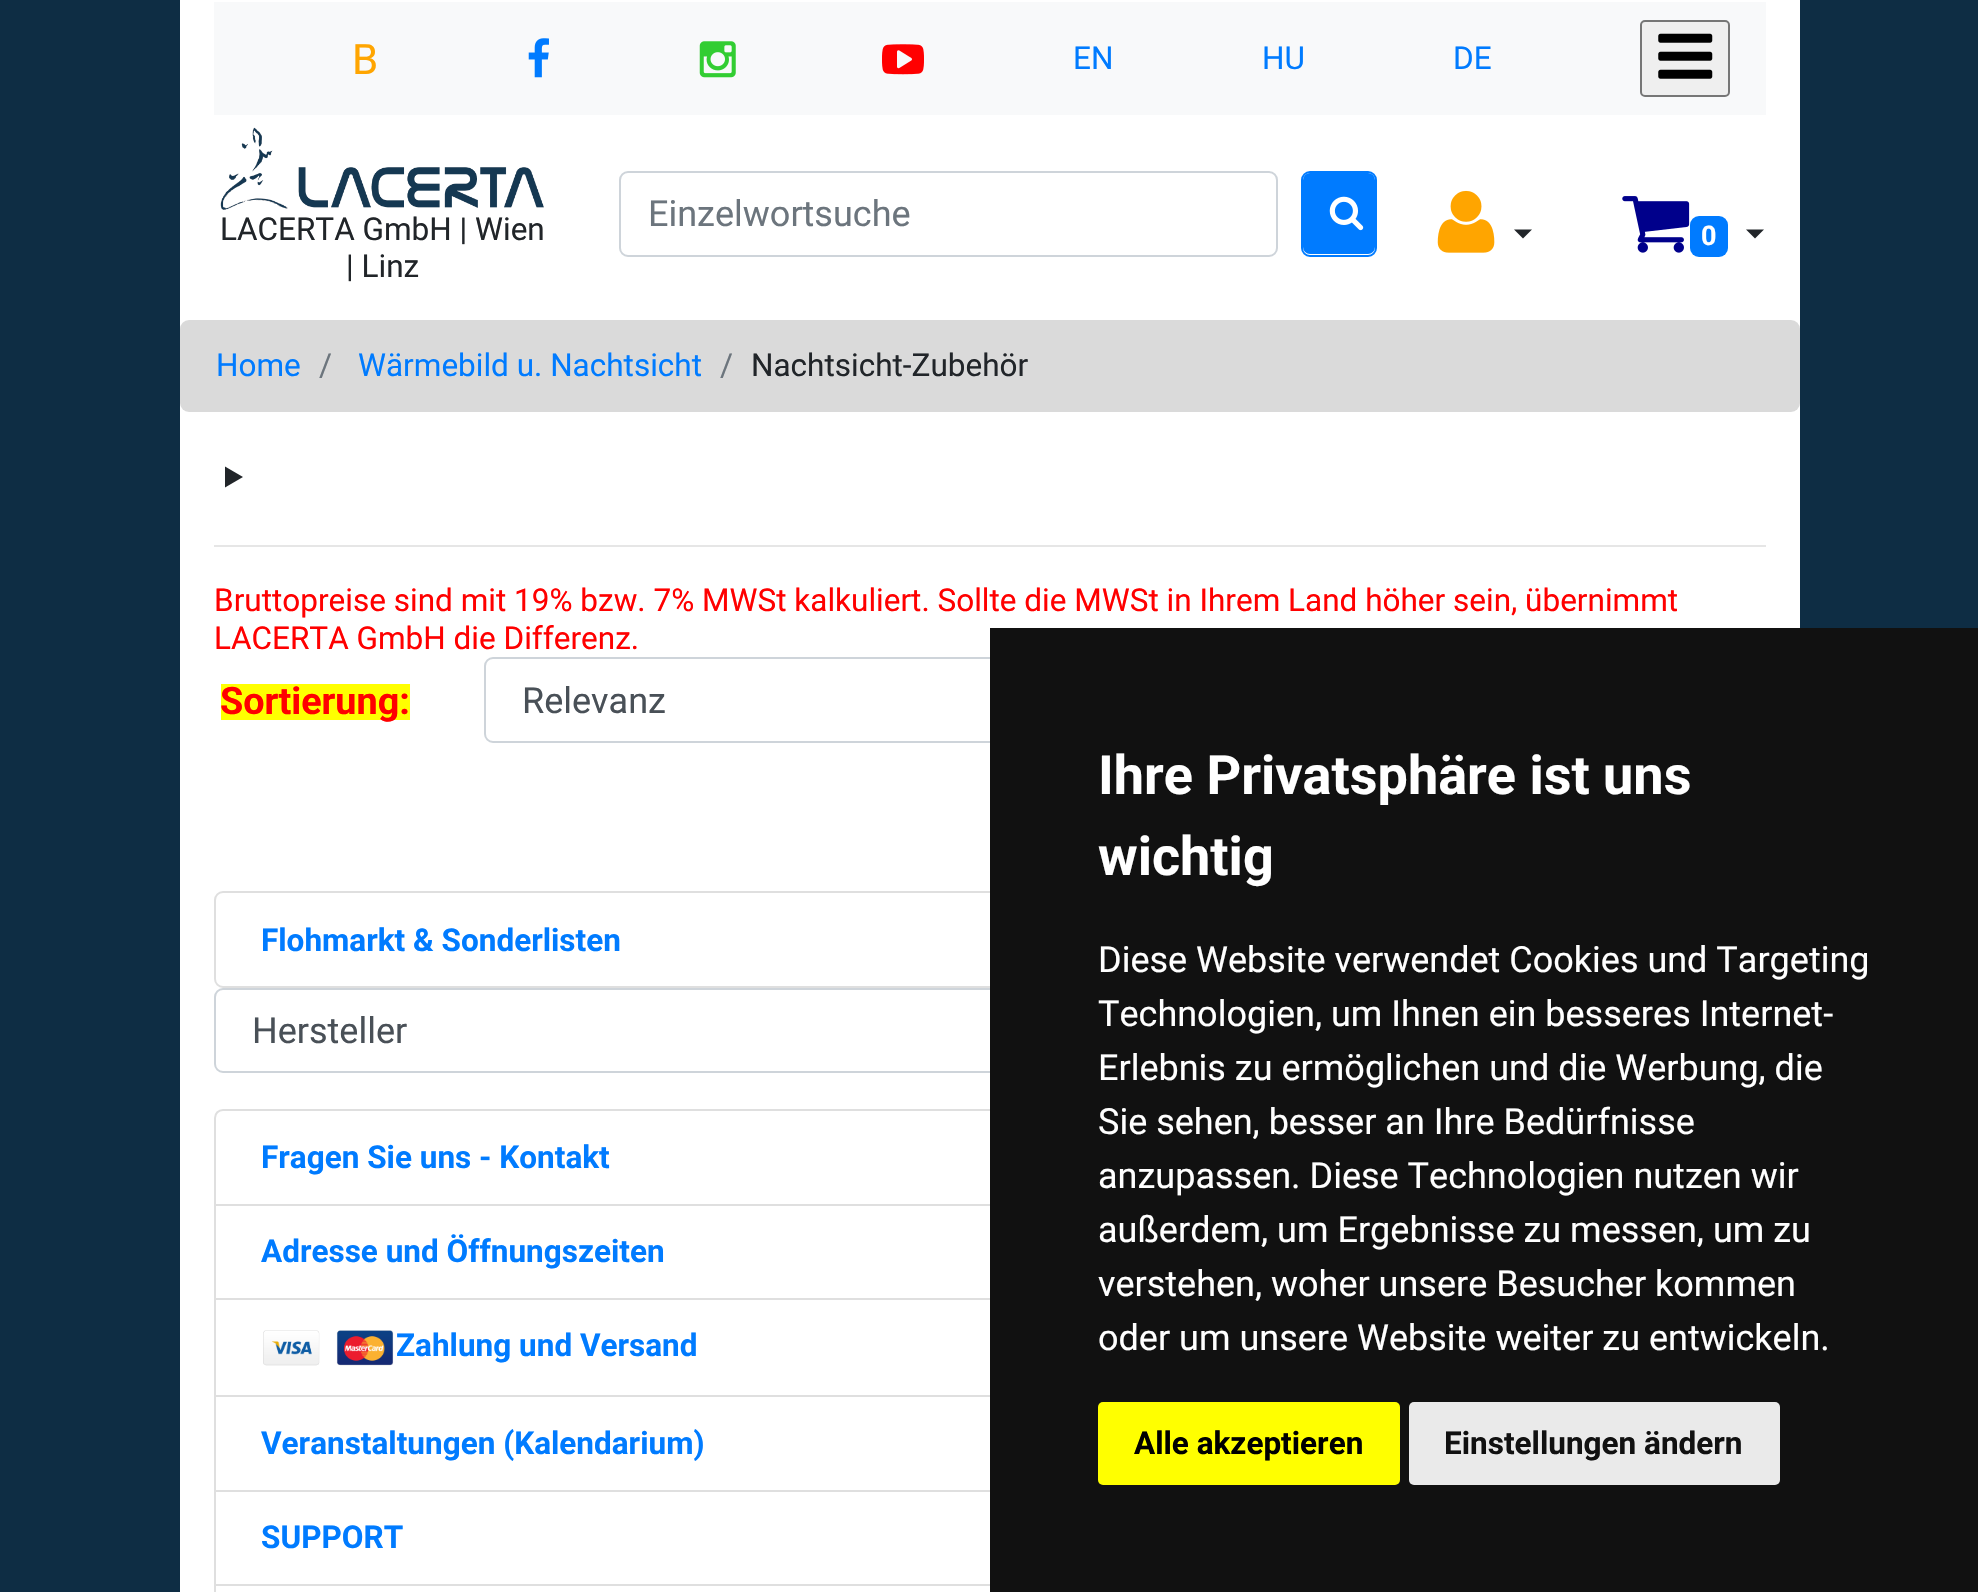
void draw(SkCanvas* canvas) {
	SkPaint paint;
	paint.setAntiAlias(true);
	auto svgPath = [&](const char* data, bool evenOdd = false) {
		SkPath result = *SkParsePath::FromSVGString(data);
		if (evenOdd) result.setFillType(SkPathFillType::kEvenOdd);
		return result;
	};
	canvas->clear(0xff0e2d44);
	paint.setColor(0xffffffff);
	canvas->drawRect(SkRect::MakeXYWH(180, 0, 1620, 1592), paint);
	paint.setColor(0xfff8f9fa);
	canvas->drawRect(SkRect::MakeXYWH(214, 2, 1552, 113), paint);
	SkFont f1(fontMgr->matchFamilyStyle("Roboto", SkFontStyle::Normal()), 42);
	f1.setSubpixel(true);
	paint.setColor(0xffffa500);
	canvas->drawString("B", 352, 74, f1, paint);
	canvas->drawImageRect(SkImages::DeferredFromEncodedData(SkData::MakeFromFileName("img1.png")), SkRect::MakeXYWH(528, 38, 21, 40), SkSamplingOptions());
	canvas->drawImageRect(SkImages::DeferredFromEncodedData(SkData::MakeFromFileName("img2.png")), SkRect::MakeXYWH(699, 41, 37, 37), SkSamplingOptions());
	canvas->drawImageRect(SkImages::DeferredFromEncodedData(SkData::MakeFromFileName("img3.png")), SkRect::MakeXYWH(882, 44, 42, 31), SkSamplingOptions());
	SkFont f2(fontMgr->matchFamilyStyle("Roboto", SkFontStyle::Normal()), 31.5);
	f2.setSubpixel(true);
	paint.setColor(0xff007bff);
	canvas->drawString("EN", 1073, 69, f2, paint);
	canvas->drawString("HU", 1262, 69, f2, paint);
	canvas->drawString("DE", 1453, 69, f2, paint);
	paint.setColor(0xffefefef);
	canvas->drawRoundRect(SkRect::MakeXYWH(1641, 21, 88, 75), 4, 4, paint);
	paint.setStroke(true);
	paint.setStrokeWidth(2);
	paint.setColor(0xff767676);
	canvas->drawRoundRect(SkRect::MakeXYWH(1641, 21, 88, 75), 4, 4, paint);
	canvas->drawImageRect(SkImages::DeferredFromEncodedData(SkData::MakeFromFileName("img4.png")), SkRect::MakeXYWH(1658, 33, 55, 46), SkSamplingOptions());
	canvas->drawImageRect(SkImages::DeferredFromEncodedData(SkData::MakeFromFileName("img5.png")), SkRect::MakeXYWH(220, 127, 324, 83), SkSamplingOptions());
	paint.setStroke(false);
	paint.setColor(0xff212529);
	canvas->drawString("LACERTA GmbH | Wien", 220, 240, f2, paint);
	canvas->drawString("| Linz", 346, 277, f2, paint);
	paint.setStroke(true);
	paint.setColor(0xffced4da);
	canvas->drawRoundRect(SkRect::MakeXYWH(620, 172, 657, 84), 8, 8, paint);
	SkFont f3(fontMgr->matchFamilyStyle("Roboto", SkFontStyle::Normal()), 36);
	f3.setSubpixel(true);
	paint.setStroke(false);
	paint.setColor(0xff6c757d);
	canvas->drawString("Einzelwortsuche", 648, 226, f3, paint);
	paint.setColor(0xff007bff);
	canvas->drawRoundRect(SkRect::MakeXYWH(1303, 173, 72, 81), 7, 7, paint);
	paint.setStroke(true);
	canvas->drawRoundRect(SkRect::MakeXYWH(1302, 172, 74, 84), 8, 8, paint);
	canvas->drawImageRect(SkImages::DeferredFromEncodedData(SkData::MakeFromFileName("img6.png")), SkRect::MakeXYWH(1329, 196, 35, 35), SkSamplingOptions());
	canvas->drawImageRect(SkImages::DeferredFromEncodedData(SkData::MakeFromFileName("img7.png")), SkRect::MakeXYWH(1437, 190, 58, 63), SkSamplingOptions());
	paint.setStroke(false);
	paint.setColor(0xff212529);
	canvas->drawPath(svgPath("M1514 229.5H1532L1523 238.5Z"), paint);
	canvas->drawImageRect(SkImages::DeferredFromEncodedData(SkData::MakeFromFileName("img8.png")), SkRect::MakeXYWH(1622, 196, 68, 57), SkSamplingOptions());
	paint.setColor(0xff007bff);
	canvas->drawRoundRect(SkRect::MakeXYWH(1690, 216, 38, 41), 9, 9, paint);
	SkFont f4(fontMgr->matchFamilyStyle("Roboto", SkFontStyle::Bold()), 27);
	f4.setSubpixel(true);
	paint.setColor(0xffffffff);
	canvas->drawString("0", 1701, 245, f4, paint);
	paint.setColor(0xff212529);
	canvas->drawPath(svgPath("M1746 229.5H1764L1755 238.5Z"), paint);
	paint.setColor(0xffdadada);
	canvas->drawRoundRect(SkRect::MakeXYWH(180, 320, 1620, 92), 9, 9, paint);
	paint.setColor(0xff007bff);
	canvas->drawString("Home", 216, 376, f2, paint);
	paint.setColor(0xff6c757d);
	canvas->drawString("/", 319, 376, f2, paint);
	paint.setColor(0xff007bff);
	canvas->drawString("Wärmebild u. Nachtsicht", 358, 376, f2, paint);
	paint.setColor(0xff6c757d);
	canvas->drawString("/", 720, 376, f2, paint);
	paint.setColor(0xff212529);
	canvas->drawString("Nachtsicht-Zubehör", 751, 376, f2, paint);
	canvas->drawPath(svgPath("M225 466.5L243 477L225 487.5Z"), paint);
	paint.setColor(0xffe6e6e6);
	canvas->drawRect(SkRect::MakeXYWH(214, 545, 1552, 2), paint);
	paint.setColor(0xffff0000);
	canvas->drawString("Bruttopreise sind mit 19% bzw. 7% MWSt kalkuliert. Sollte die MWSt in Ihrem Land höher sein, übernimmt", 214, 611, f2, paint);
	canvas->drawString("LACERTA GmbH die Differenz.", 214, 649, f2, paint);
	paint.setColor(0xffffff00);
	canvas->drawRect(SkRect::MakeXYWH(221, 684, 189, 36), paint);
	SkFont f5(fontMgr->matchFamilyStyle("Roboto", SkFontStyle::Bold()), 37.75);
	f5.setSubpixel(true);
	paint.setColor(0xffff0000);
	canvas->drawString("Sortierung:", 220, 714, f5, paint);
	paint.setStroke(true);
	paint.setColor(0xffced4da);
	canvas->drawRoundRect(SkRect::MakeXYWH(485, 658, 1280, 84), 8, 8, paint);
	paint.setStroke(false);
	paint.setColor(0xff495057);
	canvas->drawString("Relevanz", 522, 713, f3, paint);
	paint.setStroke(true);
	paint.setColor(0xffdfdfdf);
	canvas->drawRoundRect(SkRect::MakeXYWH(215, 892, 1550, 95), 8, 8, paint);
	SkFont f6(fontMgr->matchFamilyStyle("Roboto", SkFontStyle::Bold()), 31.5);
	f6.setSubpixel(true);
	paint.setStroke(false);
	paint.setColor(0xff007bff);
	canvas->drawString("Flohmarkt & Sonderlisten", 261, 951, f6, paint);
	paint.setStroke(true);
	paint.setColor(0xffced4da);
	canvas->drawRoundRect(SkRect::MakeXYWH(215, 989, 1550, 83), 8, 8, paint);
	paint.setStroke(false);
	paint.setColor(0xff495057);
	canvas->drawString("Hersteller", 252, 1043, f3, paint);
	paint.setStroke(true);
	paint.setColor(0xffdfdfdf);
	canvas->drawPath(svgPath("M223 1110H1757C1761.5 1110 1765 1113.5 1765 1118V1205H215V1118C215 1113.5 218.5 1110 223 1110Z"), paint);
	paint.setStroke(false);
	paint.setColor(0xff007bff);
	canvas->drawString("Fragen Sie uns - Kontakt", 261, 1168, f6, paint);
	paint.setStroke(true);
	paint.setColor(0xffdfdfdf);
	canvas->drawRect(SkRect::MakeXYWH(215, 1205, 1550, 95), paint);
	paint.setStroke(false);
	paint.setColor(0xff007bff);
	canvas->drawString("Adresse und Öffnungszeiten", 261, 1262, f6, paint);
	paint.setColor(0xffffffff);
	canvas->drawRect(SkRect::MakeXYWH(216, 1300, 774, 1), paint);
	paint.setStroke(true);
	paint.setColor(0xffdfdfdf);
	canvas->drawRect(SkRect::MakeXYWH(215, 1299, 1550, 97), paint);
	canvas->drawImageRect(SkImages::DeferredFromEncodedData(SkData::MakeFromFileName("img9.png")), SkRect::MakeXYWH(263, 1330, 131, 36), SkSamplingOptions());
	paint.setStroke(false);
	paint.setColor(0xff007bff);
	canvas->drawString("Zahlung und Versand", 396, 1356, f6, paint);
	paint.setStroke(true);
	paint.setColor(0xffdfdfdf);
	canvas->drawRect(SkRect::MakeXYWH(215, 1396, 1550, 95), paint);
	paint.setStroke(false);
	paint.setColor(0xff007bff);
	canvas->drawString("Veranstaltungen (Kalendarium)", 261, 1454, f6, paint);
	paint.setStroke(true);
	paint.setColor(0xffdfdfdf);
	canvas->drawRect(SkRect::MakeXYWH(215, 1491, 1550, 94), paint);
	paint.setStroke(false);
	paint.setColor(0xff007bff);
	canvas->drawString("SUPPORT", 261, 1548, f6, paint);
	paint.setStroke(true);
	paint.setColor(0xffdfdfdf);
	canvas->drawRect(SkRect::MakeXYWH(215, 1585, 1550, 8), paint);
	paint.setStroke(false);
	paint.setColor(0xff111111);
	canvas->drawRect(SkRect::MakeXYWH(990, 628, 988, 964), paint);
	SkFont f7(fontMgr->matchFamilyStyle("Roboto", SkFontStyle::Bold()), 54);
	f7.setSubpixel(true);
	paint.setColor(0xffffffff);
	canvas->drawString("Ihre Privatsphäre ist uns", 1098, 794, f7, paint);
	canvas->drawString("wichtig", 1098, 875, f7, paint);
	canvas->drawString("Diese Website verwendet Cookies und Targeting", 1098, 972, f3, paint);
	canvas->drawString("Technologien, um Ihnen ein besseres Internet-", 1098, 1026, f3, paint);
	canvas->drawString("Erlebnis zu ermöglichen und die Werbung, die", 1098, 1080, f3, paint);
	canvas->drawString("Sie sehen, besser an Ihre Bedürfnisse", 1098, 1134, f3, paint);
	canvas->drawString("anzupassen. Diese Technologien nutzen wir", 1098, 1188, f3, paint);
	canvas->drawString("außerdem, um Ergebnisse zu messen, um zu", 1098, 1242, f3, paint);
	canvas->drawString("verstehen, woher unsere Besucher kommen", 1098, 1296, f3, paint);
	canvas->drawString("oder um unsere Website weiter zu entwickeln.", 1098, 1350, f3, paint);
	paint.setColor(0xffffff00);
	canvas->drawRoundRect(SkRect::MakeXYWH(1098, 1402, 302, 83), 5, 5, paint);
	paint.setColor(0xff000000);
	canvas->drawString("Alle akzeptieren", 1134, 1454, f6, paint);
	paint.setColor(0xffeaeaea);
	canvas->drawRoundRect(SkRect::MakeXYWH(1409, 1402, 371, 83), 5, 5, paint);
	paint.setColor(0xff111111);
	canvas->drawString("Einstellungen ändern", 1444, 1454, f6, paint);
}
